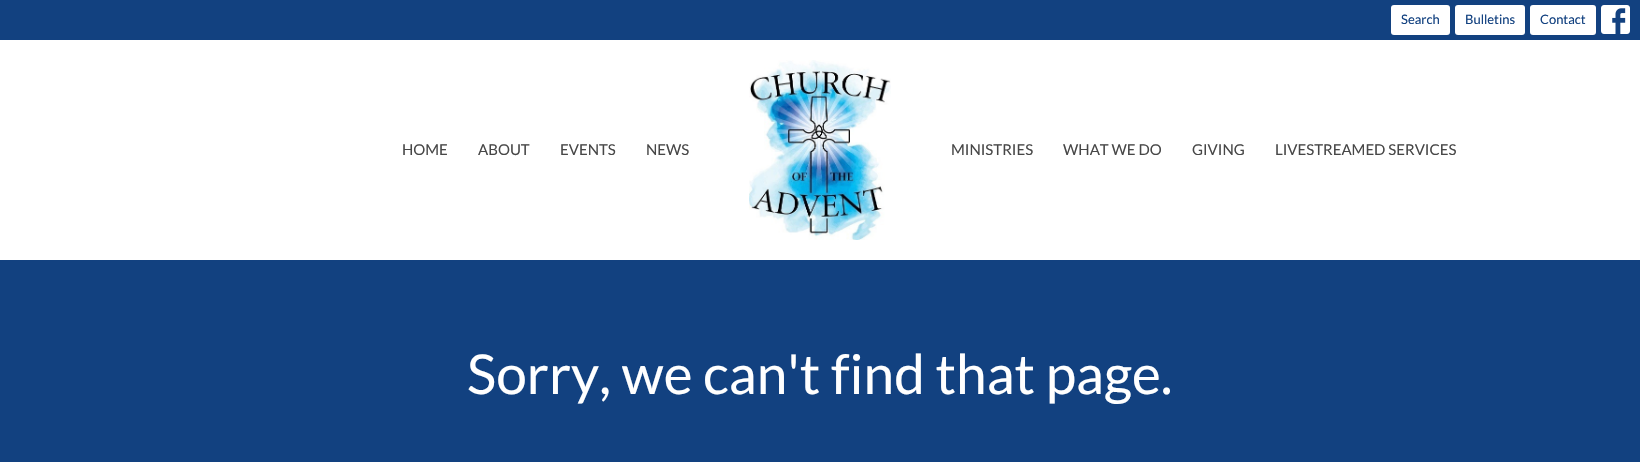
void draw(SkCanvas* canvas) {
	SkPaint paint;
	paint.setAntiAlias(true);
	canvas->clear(0xffffffff);
	paint.setColor(0xff124180);
	canvas->drawRect(SkRect::MakeXYWH(0, 0, 1640, 40), paint);
	paint.setColor(0xffffffff);
	canvas->drawRoundRect(SkRect::MakeXYWH(1391, 5, 59, 30), 3, 3, paint);
	SkFont f1(fontMgr->matchFamilyStyle("Lato", SkFontStyle::Normal()), 13);
	f1.setSubpixel(true);
	paint.setColor(0xff124180);
	canvas->drawString("Search", 1401, 24, f1, paint);
	paint.setColor(0xffffffff);
	canvas->drawRoundRect(SkRect::MakeXYWH(1455, 5, 70, 30), 3, 3, paint);
	paint.setColor(0xff124180);
	canvas->drawString("Bulletins", 1465, 24, f1, paint);
	paint.setColor(0xffffffff);
	canvas->drawRoundRect(SkRect::MakeXYWH(1530, 5, 66, 30), 3, 3, paint);
	paint.setColor(0xff124180);
	canvas->drawString("Contact", 1540, 24, f1, paint);
	canvas->drawImageRect(SkImages::DeferredFromEncodedData(SkData::MakeFromFileName("img1.png")), SkRect::MakeXYWH(1601, 5, 29, 29), SkSamplingOptions());
	SkFont f2(fontMgr->matchFamilyStyle("Lato", SkFontStyle::Normal()), 15);
	f2.setSubpixel(true);
	paint.setColor(0xff474747);
	canvas->drawString("HOME", 402, 155, f2, paint);
	canvas->drawString("ABOUT", 478, 155, f2, paint);
	canvas->drawString("EVENTS", 560, 155, f2, paint);
	canvas->drawString("NEWS", 646, 155, f2, paint);
	canvas->drawImageRect(SkImages::DeferredFromEncodedData(SkData::MakeFromFileName("img2.png")), SkRect::MakeXYWH(749, 60, 142, 180), SkSamplingOptions());
	canvas->drawString("MINISTRIES", 951, 155, f2, paint);
	canvas->drawString("WHAT WE DO", 1063, 155, f2, paint);
	canvas->drawString("GIVING", 1192, 155, f2, paint);
	canvas->drawString("LIVESTREAMED SERVICES", 1275, 155, f2, paint);
	paint.setColor(0xff124180);
	canvas->drawRect(SkRect::MakeXYWH(0, 260, 1640, 202), paint);
	SkFont f3(fontMgr->matchFamilyStyle("Lato", SkFontStyle::Normal()), 55);
	f3.setSubpixel(true);
	paint.setColor(0xffffffff);
	canvas->drawString("Sorry, we can't find that page.", 467, 394, f3, paint);
}
